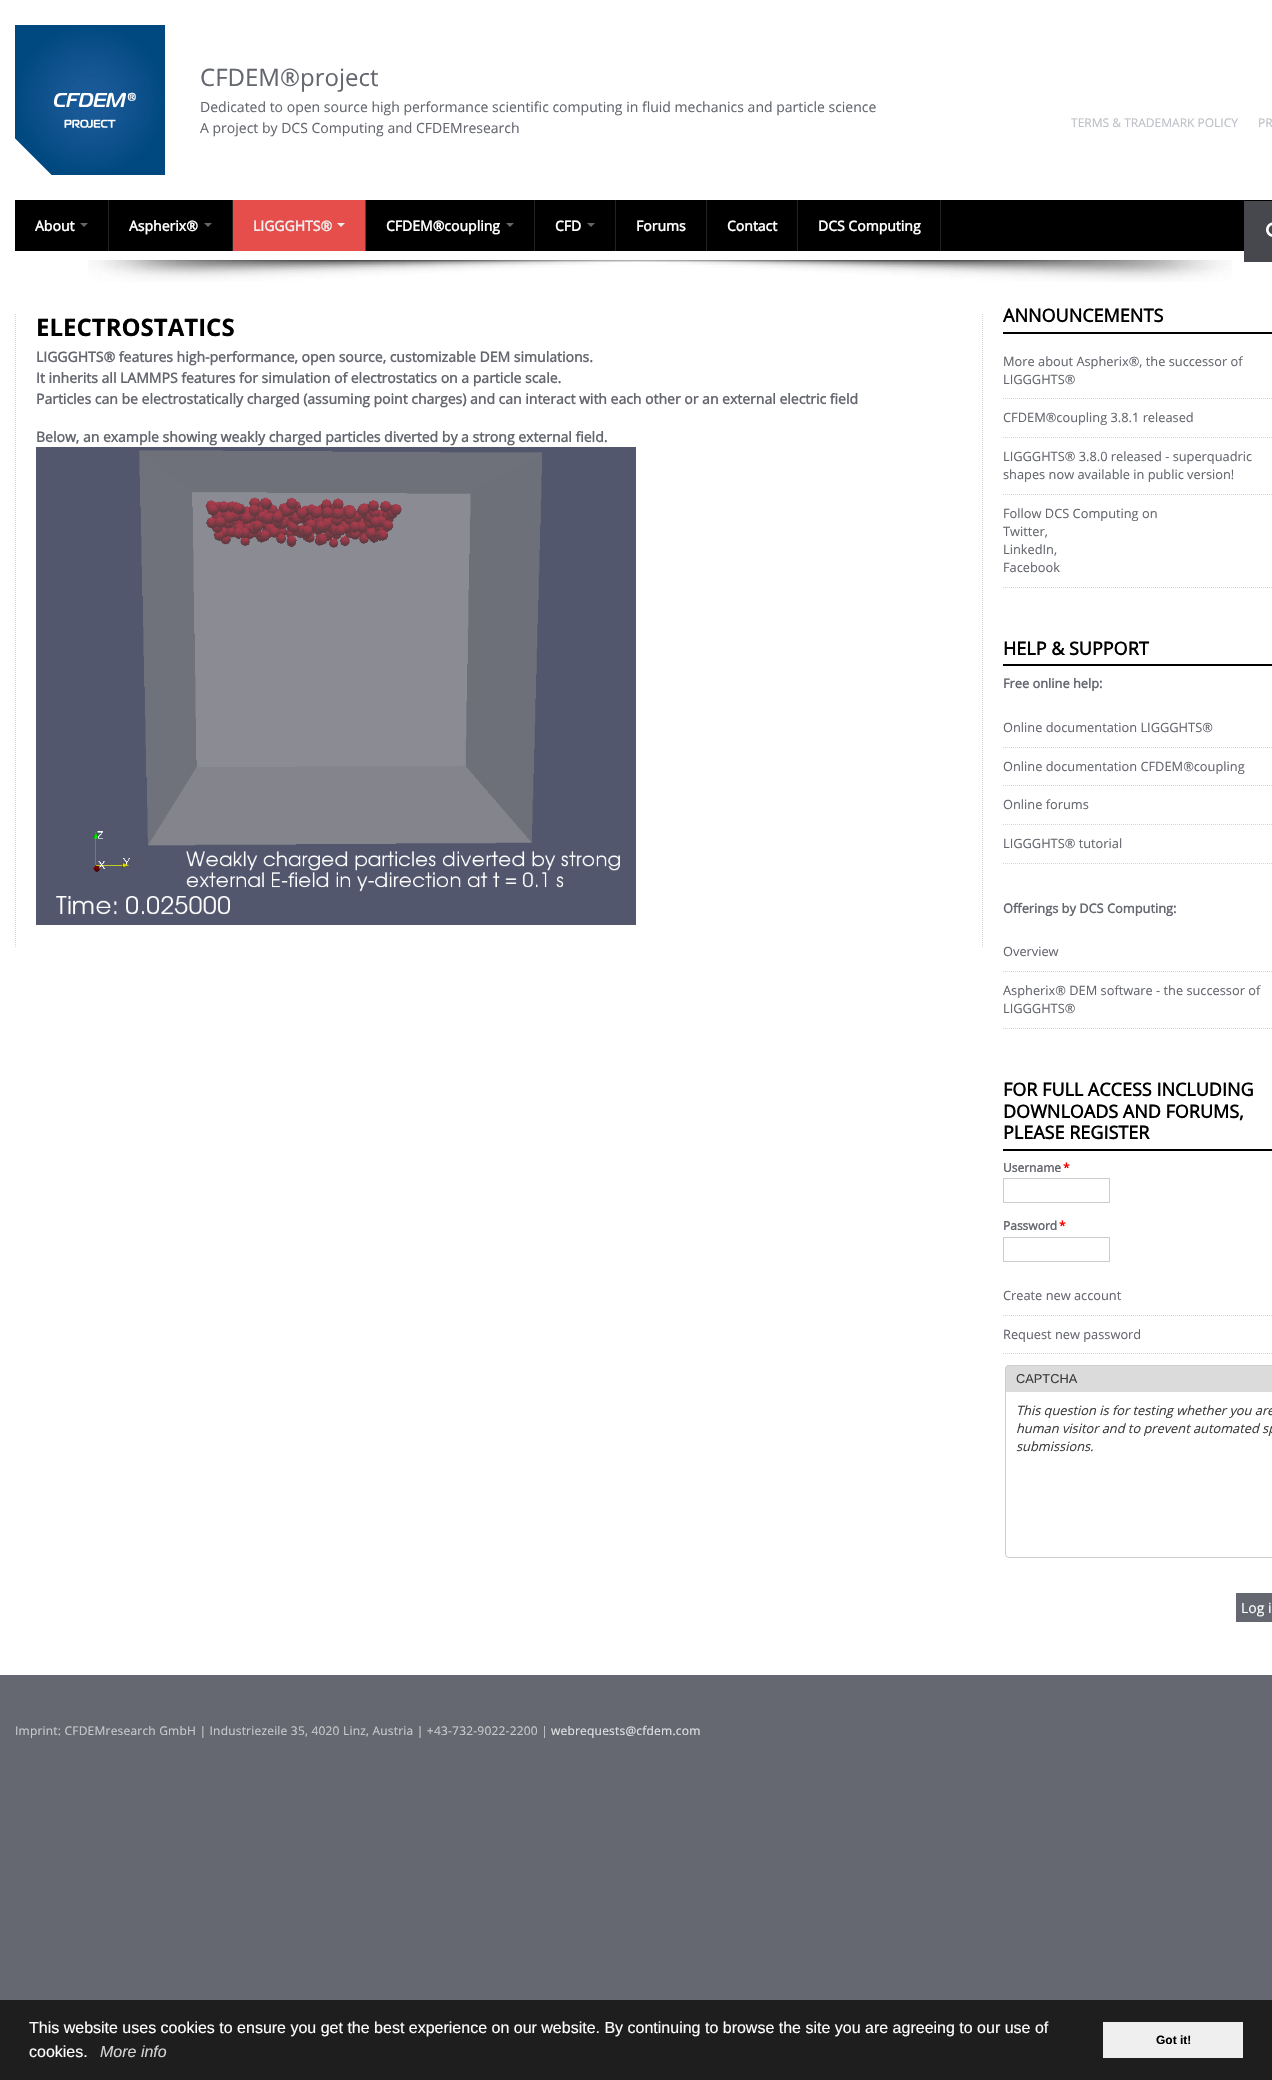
void draw(SkCanvas* canvas) {
	SkPaint paint;
	paint.setAntiAlias(true);
	auto spacedText = [&](const char* s, float x, float y, const SkFont& font, const SkPaint& ink, float letter, float word) {
		std::vector<SkGlyphID> glyphs(font.countText(s, strlen(s), SkTextEncoding::kUTF8));
		std::vector<float> xs(glyphs.size());
		font.textToGlyphs(s, strlen(s), SkTextEncoding::kUTF8, glyphs);
		font.getXPos(glyphs, xs, x);
		float extra = 0;
		for (size_t i = 0; i < glyphs.size(); i++) {
			xs[i] += extra;
			extra += letter + word * (glyphs[i] == font.unicharToGlyph(' '));
		}
		canvas->drawTextBlob(SkTextBlob::MakeFromPosHGlyphs(glyphs, xs, y, font), 0, 0, ink);
	};
	auto svgPath = [&](const char* data, bool evenOdd = false) {
		SkPath result = *SkParsePath::FromSVGString(data);
		if (evenOdd) result.setFillType(SkPathFillType::kEvenOdd);
		return result;
	};
	canvas->clear(0xff656870);
	paint.setColor(0xffffffff);
	canvas->drawRect(SkRect::MakeXYWH(0, 0, 1272, 1675), paint);
	canvas->drawImageRect(SkImages::DeferredFromEncodedData(SkData::MakeFromFileName("img1.png")), SkRect::MakeXYWH(15, 25, 150, 150), SkSamplingOptions());
	SkFont f1(fontMgr->matchFamilyStyle("Open Sans", SkFontStyle::Normal()), 24);
	f1.setSubpixel(true);
	paint.setColor(0xff65676f);
	canvas->drawString("CFDEM®project", 200, 86, f1, paint);
	SkFont f2(fontMgr->matchFamilyStyle("Open Sans", SkFontStyle::Normal()), 14);
	f2.setSubpixel(true);
	canvas->drawString("Dedicated to open source high performance scientific computing in fluid mechanics and particle science", 200, 112, f2, paint);
	canvas->drawString("A project by DCS Computing and CFDEMresearch", 200, 133, f2, paint);
	SkFont f3(fontMgr->matchFamilyStyle("Open Sans", SkFontStyle::Normal()), 12);
	f3.setSubpixel(true);
	paint.setColor(0xffbdc0c7);
	canvas->drawString("TERMS & TRADEMARK POLICY", 1071, 127, f3, paint);
	canvas->drawString("PR", 1258, 127, f3, paint);
	canvas->drawImageRect(SkImages::DeferredFromEncodedData(SkData::MakeFromFileName("img2.png")), SkRect::MakeXYWH(88, 260, 1144, 22), SkSamplingOptions());
	paint.setColor(0xff000000);
	canvas->drawRect(SkRect::MakeXYWH(15, 200, 1257, 51), paint);
	paint.setColor(0xff222222);
	canvas->drawRect(SkRect::MakeXYWH(108, 200, 1, 51), paint);
	SkFont f4(fontMgr->matchFamilyStyle("Open Sans", SkFontStyle::Bold()), 14);
	f4.setSubpixel(true);
	paint.setColor(0xffffffff);
	canvas->drawString("About", 35, 231, f4, paint);
	paint.setColor(0xff666666);
	canvas->drawPath(svgPath("M80 223H88L84 227Z"), paint);
	paint.setColor(0xff222222);
	canvas->drawRect(SkRect::MakeXYWH(232, 200, 1, 51), paint);
	paint.setColor(0xffffffff);
	canvas->drawString("Aspherix®", 129, 231, f4, paint);
	paint.setColor(0xff666666);
	canvas->drawPath(svgPath("M204 223H212L208 227Z"), paint);
	paint.setColor(0xffe54e4b);
	canvas->drawRect(SkRect::MakeXYWH(233, 200, 132, 51), paint);
	paint.setColor(0xff444444);
	canvas->drawRect(SkRect::MakeXYWH(365, 200, 1, 51), paint);
	paint.setColor(0xffeeeeee);
	canvas->drawString("LIGGGHTS®", 253, 231, f4, paint);
	canvas->drawPath(svgPath("M337 223H345L341 227Z"), paint);
	paint.setColor(0xff222222);
	canvas->drawRect(SkRect::MakeXYWH(534, 200, 1, 51), paint);
	paint.setColor(0xffffffff);
	canvas->drawString("CFDEM®coupling", 386, 231, f4, paint);
	paint.setColor(0xff666666);
	canvas->drawPath(svgPath("M506 223H514L510 227Z"), paint);
	paint.setColor(0xff222222);
	canvas->drawRect(SkRect::MakeXYWH(615, 200, 1, 51), paint);
	paint.setColor(0xffffffff);
	canvas->drawString("CFD", 555, 231, f4, paint);
	paint.setColor(0xff666666);
	canvas->drawPath(svgPath("M587 223H595L591 227Z"), paint);
	paint.setColor(0xff222222);
	canvas->drawRect(SkRect::MakeXYWH(706, 200, 1, 51), paint);
	paint.setColor(0xffffffff);
	canvas->drawString("Forums", 636, 231, f4, paint);
	paint.setColor(0xff222222);
	canvas->drawRect(SkRect::MakeXYWH(797, 200, 1, 51), paint);
	paint.setColor(0xffffffff);
	canvas->drawString("Contact", 727, 231, f4, paint);
	paint.setColor(0xff222222);
	canvas->drawRect(SkRect::MakeXYWH(940, 200, 1, 51), paint);
	paint.setColor(0xffffffff);
	canvas->drawString("DCS Computing", 818, 231, f4, paint);
	paint.setColor(0xff46484e);
	canvas->drawRect(SkRect::MakeXYWH(1244, 201, 28, 61), paint);
	canvas->drawImageRect(SkImages::DeferredFromEncodedData(SkData::MakeFromFileName("img3.png")), SkRect::MakeXYWH(1266, 222, 6, 15), SkSamplingOptions());
	paint.setStroke(true);
	paint.setStrokeWidth(1);
	paint.setColor(0xffd3d7d9);
	paint.setPathEffect(SkDashPathEffect::Make({{1, 1}}, 0));
	canvas->drawPath(svgPath("M982.5 314V947"), paint);
	paint.setPathEffect(nullptr);
	paint.setPathEffect(SkDashPathEffect::Make({{1, 1}}, 0));
	canvas->drawPath(svgPath("M15.5 314V947"), paint);
	paint.setPathEffect(nullptr);
	SkFont f5(fontMgr->matchFamilyStyle("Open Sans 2", SkFontStyle::Bold()), 24);
	f5.setSubpixel(true);
	paint.setStroke(false);
	paint.setColor(0xff000000);
	canvas->drawString("ELECTROSTATICS", 36, 336, f5, paint);
	paint.setColor(0xff65676f);
	canvas->drawString("LIGGGHTS® features high-performance, open source, customizable DEM simulations.", 36, 362, f4, paint);
	canvas->drawString("It inherits all LAMMPS features for simulation of electrostatics on a particle scale.", 36, 383, f4, paint);
	canvas->drawString("Particles can be electrostatically charged (assuming point charges) and can interact with each other or an external electric field", 36, 404, f4, paint);
	canvas->drawString("Below, an example showing weakly charged particles diverted by a strong external field.", 36, 442, f4, paint);
	canvas->drawImageRect(SkImages::DeferredFromEncodedData(SkData::MakeFromFileName("img4.png")), SkRect::MakeXYWH(36, 447, 600, 478), SkSamplingOptions());
	paint.setColor(0xff000000);
	canvas->drawRect(SkRect::MakeXYWH(1003, 332, 269, 2), paint);
	SkFont f6(fontMgr->matchFamilyStyle("Open Sans", SkFontStyle::Bold()), 18);
	f6.setSubpixel(true);
	canvas->drawString("ANNOUNCEMENTS", 1003, 322, f6, paint);
	paint.setStroke(true);
	paint.setColor(0xffd3d7d9);
	paint.setPathEffect(SkDashPathEffect::Make({{1, 1}}, 0));
	canvas->drawPath(svgPath("M1003 398.5H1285"), paint);
	paint.setPathEffect(nullptr);
	SkFont f7(fontMgr->matchFamilyStyle("Open Sans", SkFontStyle::Normal()), 12.8);
	f7.setSubpixel(true);
	paint.setStroke(false);
	paint.setColor(0xff65676f);
	canvas->drawString("More about Aspherix®, the successor of", 1003, 366, f7, paint);
	canvas->drawString("LIGGGHTS®", 1003, 384, f7, paint);
	paint.setStroke(true);
	paint.setColor(0xffd3d7d9);
	paint.setPathEffect(SkDashPathEffect::Make({{1, 1}}, 0));
	canvas->drawPath(svgPath("M1003 437.5H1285"), paint);
	paint.setPathEffect(nullptr);
	paint.setStroke(false);
	paint.setColor(0xff65676f);
	canvas->drawString("CFDEM®coupling 3.8.1 released", 1003, 422, f7, paint);
	paint.setStroke(true);
	paint.setColor(0xffd3d7d9);
	paint.setPathEffect(SkDashPathEffect::Make({{1, 1}}, 0));
	canvas->drawPath(svgPath("M1003 494.5H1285"), paint);
	paint.setPathEffect(nullptr);
	paint.setStroke(false);
	paint.setColor(0xff65676f);
	canvas->drawString("LIGGGHTS® 3.8.0 released - superquadric", 1003, 461, f7, paint);
	canvas->drawString("shapes now available in public version!", 1003, 479, f7, paint);
	paint.setStroke(true);
	paint.setColor(0xffd3d7d9);
	paint.setPathEffect(SkDashPathEffect::Make({{1, 1}}, 0));
	canvas->drawPath(svgPath("M1003 587.5H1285"), paint);
	paint.setPathEffect(nullptr);
	paint.setStroke(false);
	paint.setColor(0xff65676f);
	canvas->drawString("Follow DCS Computing on", 1003, 518, f7, paint);
	canvas->drawString("Twitter,", 1003, 536, f7, paint);
	canvas->drawString("LinkedIn,", 1003, 554, f7, paint);
	canvas->drawString("Facebook", 1003, 572, f7, paint);
	paint.setColor(0xff000000);
	canvas->drawRect(SkRect::MakeXYWH(1003, 664, 269, 2), paint);
	canvas->drawString("HELP & SUPPORT", 1003, 655, f6, paint);
	SkFont f8(fontMgr->matchFamilyStyle("Open Sans", SkFontStyle::Bold()), 12.8);
	f8.setSubpixel(true);
	paint.setColor(0xff65676f);
	canvas->drawString("Free online help:", 1003, 688, f8, paint);
	paint.setStroke(true);
	paint.setColor(0xffd3d7d9);
	paint.setPathEffect(SkDashPathEffect::Make({{1, 1}}, 0));
	canvas->drawPath(svgPath("M1003 747.5H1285"), paint);
	paint.setPathEffect(nullptr);
	paint.setStroke(false);
	paint.setColor(0xff65676f);
	canvas->drawString("Online documentation LIGGGHTS®", 1003, 732, f7, paint);
	paint.setStroke(true);
	paint.setColor(0xffd3d7d9);
	paint.setPathEffect(SkDashPathEffect::Make({{1, 1}}, 0));
	canvas->drawPath(svgPath("M1003 785.5H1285"), paint);
	paint.setPathEffect(nullptr);
	paint.setStroke(false);
	paint.setColor(0xff65676f);
	canvas->drawString("Online documentation CFDEM®coupling", 1003, 771, f7, paint);
	paint.setStroke(true);
	paint.setColor(0xffd3d7d9);
	paint.setPathEffect(SkDashPathEffect::Make({{1, 1}}, 0));
	canvas->drawPath(svgPath("M1003 824.5H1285"), paint);
	paint.setPathEffect(nullptr);
	paint.setStroke(false);
	paint.setColor(0xff65676f);
	canvas->drawString("Online forums", 1003, 809, f7, paint);
	paint.setStroke(true);
	paint.setColor(0xffd3d7d9);
	paint.setPathEffect(SkDashPathEffect::Make({{1, 1}}, 0));
	canvas->drawPath(svgPath("M1003 863.5H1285"), paint);
	paint.setPathEffect(nullptr);
	paint.setStroke(false);
	paint.setColor(0xff65676f);
	canvas->drawString("LIGGGHTS® tutorial", 1003, 848, f7, paint);
	canvas->drawString("Offerings by DCS Computing:", 1003, 913, f8, paint);
	paint.setStroke(true);
	paint.setColor(0xffd3d7d9);
	paint.setPathEffect(SkDashPathEffect::Make({{1, 1}}, 0));
	canvas->drawPath(svgPath("M1003 971.5H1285"), paint);
	paint.setPathEffect(nullptr);
	paint.setStroke(false);
	paint.setColor(0xff65676f);
	canvas->drawString("Overview", 1003, 956, f7, paint);
	paint.setStroke(true);
	paint.setColor(0xffd3d7d9);
	paint.setPathEffect(SkDashPathEffect::Make({{1, 1}}, 0));
	canvas->drawPath(svgPath("M1003 1028.5H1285"), paint);
	paint.setPathEffect(nullptr);
	paint.setStroke(false);
	paint.setColor(0xff65676f);
	canvas->drawString("Aspherix® DEM software - the successor of", 1003, 995, f7, paint);
	canvas->drawString("LIGGGHTS®", 1003, 1013, f7, paint);
	paint.setColor(0xff000000);
	canvas->drawRect(SkRect::MakeXYWH(1003, 1149, 269, 2), paint);
	canvas->drawString("FOR FULL ACCESS INCLUDING", 1003, 1096, f6, paint);
	canvas->drawString("DOWNLOADS AND FORUMS,", 1003, 1118, f6, paint);
	canvas->drawString("PLEASE REGISTER", 1003, 1139, f6, paint);
	SkFont f9(fontMgr->matchFamilyStyle("Open Sans", SkFontStyle::Bold()), 12);
	f9.setSubpixel(true);
	paint.setColor(0xff65676f);
	canvas->drawString("Username", 1003, 1172, f9, paint);
	paint.setColor(0xffff0000);
	canvas->drawString("*", 1063, 1172, f9, paint);
	paint.setStroke(true);
	paint.setColor(0xffcccccc);
	canvas->drawRect(SkRect::MakeXYWH(1003.5, 1178.5, 106, 24), paint);
	paint.setStroke(false);
	paint.setColor(0xff65676f);
	canvas->drawString("Password", 1003, 1230, f9, paint);
	paint.setColor(0xffff0000);
	canvas->drawString("*", 1059, 1230, f9, paint);
	paint.setStroke(true);
	paint.setColor(0xffcccccc);
	canvas->drawRect(SkRect::MakeXYWH(1003.5, 1237.5, 106, 24), paint);
	paint.setColor(0xffd3d7d9);
	paint.setPathEffect(SkDashPathEffect::Make({{1, 1}}, 0));
	canvas->drawPath(svgPath("M1003 1315.5H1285"), paint);
	paint.setPathEffect(nullptr);
	paint.setStroke(false);
	paint.setColor(0xff65676f);
	canvas->drawString("Create new account", 1003, 1300, f7, paint);
	paint.setStroke(true);
	paint.setColor(0xffd3d7d9);
	paint.setPathEffect(SkDashPathEffect::Make({{1, 1}}, 0));
	canvas->drawPath(svgPath("M1003 1353.5H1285"), paint);
	paint.setPathEffect(nullptr);
	paint.setStroke(false);
	paint.setColor(0xff65676f);
	canvas->drawString("Request new password", 1003, 1339, f7, paint);
	paint.setStroke(true);
	paint.setColor(0xffcccccc);
	canvas->drawRoundRect(SkRect::MakeXYWH(1005.5, 1376.5, 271, 181), 3.5, 3.5, paint);
	paint.setStroke(false);
	paint.setColor(0xffdbdbdb);
	canvas->drawPath(svgPath("M1009 1365H1272C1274 1365 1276 1367 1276 1369V1392H1005V1369C1005 1367 1007 1365 1009 1365Z"), paint);
	paint.setColor(0xffcccccc);
	canvas->drawPath(svgPath("M1009 1365H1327C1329 1365 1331 1367 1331 1369V1392H1005V1369C1005 1367 1007 1365 1009 1365ZM1009 1366H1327C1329 1366 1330 1367 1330 1369V1392H1006V1369C1006 1367 1007 1366 1009 1366Z", true), paint);
	SkFont f10(fontMgr->matchFamilyStyle("Liberation Sans", SkFontStyle::Normal()), 12.8);
	f10.setSubpixel(true);
	paint.setColor(0xff3c3c3c);
	canvas->drawString("CAPTCHA", 1016, 1383, f10, paint);
	SkFont f11(fontMgr->matchFamilyStyle("Open Sans", SkFontStyle::Italic()), 12.8);
	f11.setSubpixel(true);
	canvas->drawString("This question is for testing whether you are", 1016, 1415, f11, paint);
	canvas->drawString("human visitor and to prevent automated sp", 1016, 1433, f11, paint);
	canvas->drawString("submissions.", 1016, 1451, f11, paint);
	paint.setColor(0xff656870);
	canvas->drawRect(SkRect::MakeXYWH(1236, 1593, 36, 29), paint);
	paint.setColor(0xffffffff);
	canvas->drawString("Log i", 1241, 1613, f2, paint);
	paint.setColor(0xffc9cacd);
	spacedText("Imprint: CFDEMresearch GmbH | Industriezeile 35, 4020 Linz, Austria | +43-732-9022-2200 |", 15, 1735, f3, paint, 0.2, 0);
	paint.setColor(0xffe0e1e2);
	spacedText("webrequests@cfdem.com", 551, 1735, f3, paint, 0.2, 0);
	paint.setColor(0xff1e1e1e);
	canvas->drawRect(SkRect::MakeXYWH(0, 2000, 1272, 80), paint);
	SkFont f12(fontMgr->matchFamilyStyle("Liberation Sans", SkFontStyle::Normal()), 16);
	f12.setSubpixel(true);
	paint.setColor(0xffffffff);
	canvas->drawString("This website uses cookies to ensure you get the best experience on our website. By continuing to browse the site you are agreeing to our use of", 29, 2033, f12, paint);
	canvas->drawString("cookies.", 29, 2057, f12, paint);
	SkFont f13(fontMgr->matchFamilyStyle("Liberation Sans", SkFontStyle::Italic()), 16);
	f13.setSubpixel(true);
	paint.setColor(0xffd2d2d2);
	canvas->drawString("More info", 100, 2057, f13, paint);
	paint.setColor(0xffefefef);
	canvas->drawRect(SkRect::MakeXYWH(1103, 2022, 140, 36), paint);
	SkFont f14(fontMgr->matchFamilyStyle("Liberation Sans", SkFontStyle::Bold()), 12);
	f14.setSubpixel(true);
	paint.setColor(0xff000000);
	canvas->drawString("Got it!", 1156, 2044, f14, paint);
}
